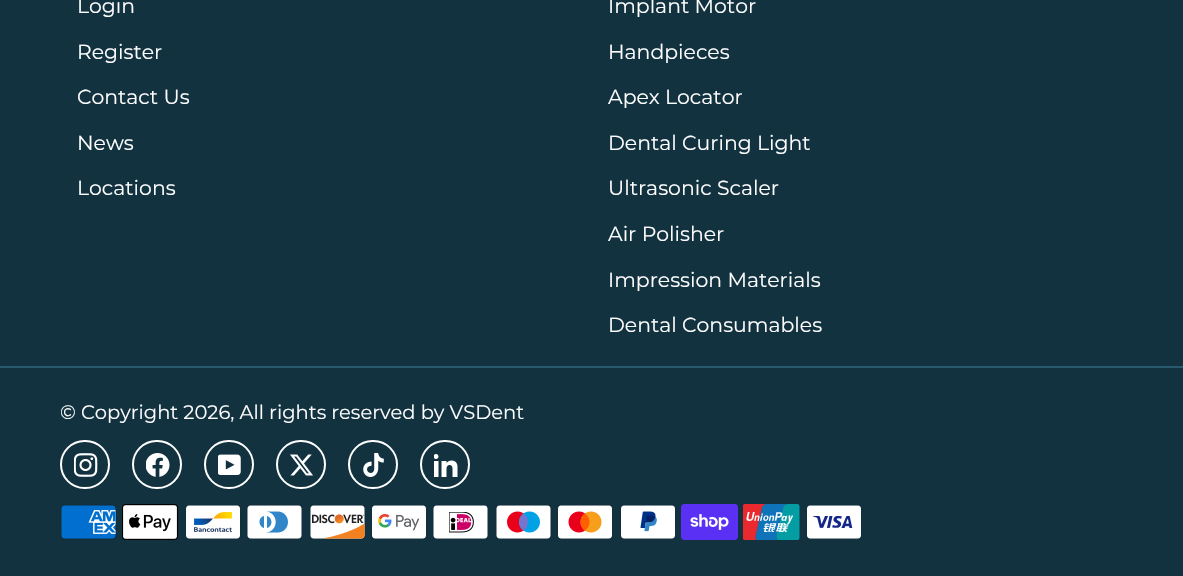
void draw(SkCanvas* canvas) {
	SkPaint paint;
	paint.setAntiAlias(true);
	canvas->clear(0xff123240);
	SkFont f1(fontMgr->matchFamilyStyle("Montserrat", SkFontStyle::Normal()), 20.4);
	f1.setSubpixel(true);
	paint.setColor(0xffffffff);
	canvas->drawString("Login", 77, 13, f1, paint);
	canvas->drawString("Register", 77, 59, f1, paint);
	canvas->drawString("Contact Us", 77, 104, f1, paint);
	canvas->drawString("News", 77, 150, f1, paint);
	canvas->drawString("Locations", 77, 195, f1, paint);
	canvas->drawString("Implant Motor", 608, 13, f1, paint);
	canvas->drawString("Handpieces", 608, 59, f1, paint);
	canvas->drawString("Apex Locator", 608, 104, f1, paint);
	canvas->drawString("Dental Curing Light", 608, 150, f1, paint);
	canvas->drawString("Ultrasonic Scaler", 608, 195, f1, paint);
	canvas->drawString("Air Polisher", 608, 241, f1, paint);
	canvas->drawString("Impression Materials", 608, 287, f1, paint);
	canvas->drawString("Dental Consumables", 608, 332, f1, paint);
	paint.setColor(0xff29596f);
	canvas->drawRect(SkRect::MakeXYWH(0, 366, 1183, 2), paint);
	SkFont f2(fontMgr->matchFamilyStyle("Montserrat", SkFontStyle::Normal()), 19.5);
	f2.setSubpixel(true);
	paint.setColor(0xffffffff);
	canvas->drawString("© Copyright 2026, All rights reserved by VSDent", 60, 419, f2, paint);
	paint.setStroke(true);
	paint.setStrokeWidth(2);
	canvas->drawRoundRect(SkRect::MakeXYWH(61, 441, 48, 47), 23.5, 23.5, paint);
	canvas->drawImageRect(SkImages::DeferredFromEncodedData(SkData::MakeFromFileName("img1.png")), SkRect::MakeXYWH(74, 453, 24, 24), SkSamplingOptions());
	canvas->drawRoundRect(SkRect::MakeXYWH(133, 441, 48, 47), 23.5, 23.5, paint);
	canvas->drawImageRect(SkImages::DeferredFromEncodedData(SkData::MakeFromFileName("img2.png")), SkRect::MakeXYWH(146, 453, 24, 24), SkSamplingOptions());
	canvas->drawRoundRect(SkRect::MakeXYWH(205, 441, 48, 47), 23.5, 23.5, paint);
	canvas->drawImageRect(SkImages::DeferredFromEncodedData(SkData::MakeFromFileName("img3.png")), SkRect::MakeXYWH(218, 454, 23, 21), SkSamplingOptions());
	canvas->drawRoundRect(SkRect::MakeXYWH(277, 441, 48, 47), 23.5, 23.5, paint);
	canvas->drawImageRect(SkImages::DeferredFromEncodedData(SkData::MakeFromFileName("img4.png")), SkRect::MakeXYWH(290, 454, 23, 22), SkSamplingOptions());
	canvas->drawRoundRect(SkRect::MakeXYWH(349, 441, 48, 47), 23.5, 23.5, paint);
	canvas->drawImageRect(SkImages::DeferredFromEncodedData(SkData::MakeFromFileName("img5.png")), SkRect::MakeXYWH(363, 453, 21, 24), SkSamplingOptions());
	canvas->drawRoundRect(SkRect::MakeXYWH(421, 441, 48, 47), 23.5, 23.5, paint);
	canvas->drawImageRect(SkImages::DeferredFromEncodedData(SkData::MakeFromFileName("img6.png")), SkRect::MakeXYWH(434, 454, 24, 23), SkSamplingOptions());
	canvas->drawImageRect(SkImages::DeferredFromEncodedData(SkData::MakeFromFileName("img7.png")), SkRect::MakeXYWH(60, 504, 57, 36), SkSamplingOptions());
	canvas->drawImageRect(SkImages::DeferredFromEncodedData(SkData::MakeFromFileName("img8.png")), SkRect::MakeXYWH(122, 504, 57, 36), SkSamplingOptions());
	canvas->drawImageRect(SkImages::DeferredFromEncodedData(SkData::MakeFromFileName("img9.png")), SkRect::MakeXYWH(185, 504, 56, 36), SkSamplingOptions());
	canvas->drawImageRect(SkImages::DeferredFromEncodedData(SkData::MakeFromFileName("img10.png")), SkRect::MakeXYWH(246, 504, 57, 36), SkSamplingOptions());
	canvas->drawImageRect(SkImages::DeferredFromEncodedData(SkData::MakeFromFileName("img11.png")), SkRect::MakeXYWH(309, 504, 57, 36), SkSamplingOptions());
	canvas->drawImageRect(SkImages::DeferredFromEncodedData(SkData::MakeFromFileName("img12.png")), SkRect::MakeXYWH(371, 504, 56, 36), SkSamplingOptions());
	canvas->drawImageRect(SkImages::DeferredFromEncodedData(SkData::MakeFromFileName("img13.png")), SkRect::MakeXYWH(432, 504, 57, 36), SkSamplingOptions());
	canvas->drawImageRect(SkImages::DeferredFromEncodedData(SkData::MakeFromFileName("img14.png")), SkRect::MakeXYWH(495, 504, 57, 36), SkSamplingOptions());
	canvas->drawImageRect(SkImages::DeferredFromEncodedData(SkData::MakeFromFileName("img15.png")), SkRect::MakeXYWH(557, 504, 56, 36), SkSamplingOptions());
	canvas->drawImageRect(SkImages::DeferredFromEncodedData(SkData::MakeFromFileName("img16.png")), SkRect::MakeXYWH(620, 504, 56, 36), SkSamplingOptions());
	canvas->drawImageRect(SkImages::DeferredFromEncodedData(SkData::MakeFromFileName("img17.png")), SkRect::MakeXYWH(681, 504, 57, 36), SkSamplingOptions());
	canvas->drawImageRect(SkImages::DeferredFromEncodedData(SkData::MakeFromFileName("img18.png")), SkRect::MakeXYWH(743, 504, 57, 36), SkSamplingOptions());
	canvas->drawImageRect(SkImages::DeferredFromEncodedData(SkData::MakeFromFileName("img19.png")), SkRect::MakeXYWH(806, 504, 56, 36), SkSamplingOptions());
}
